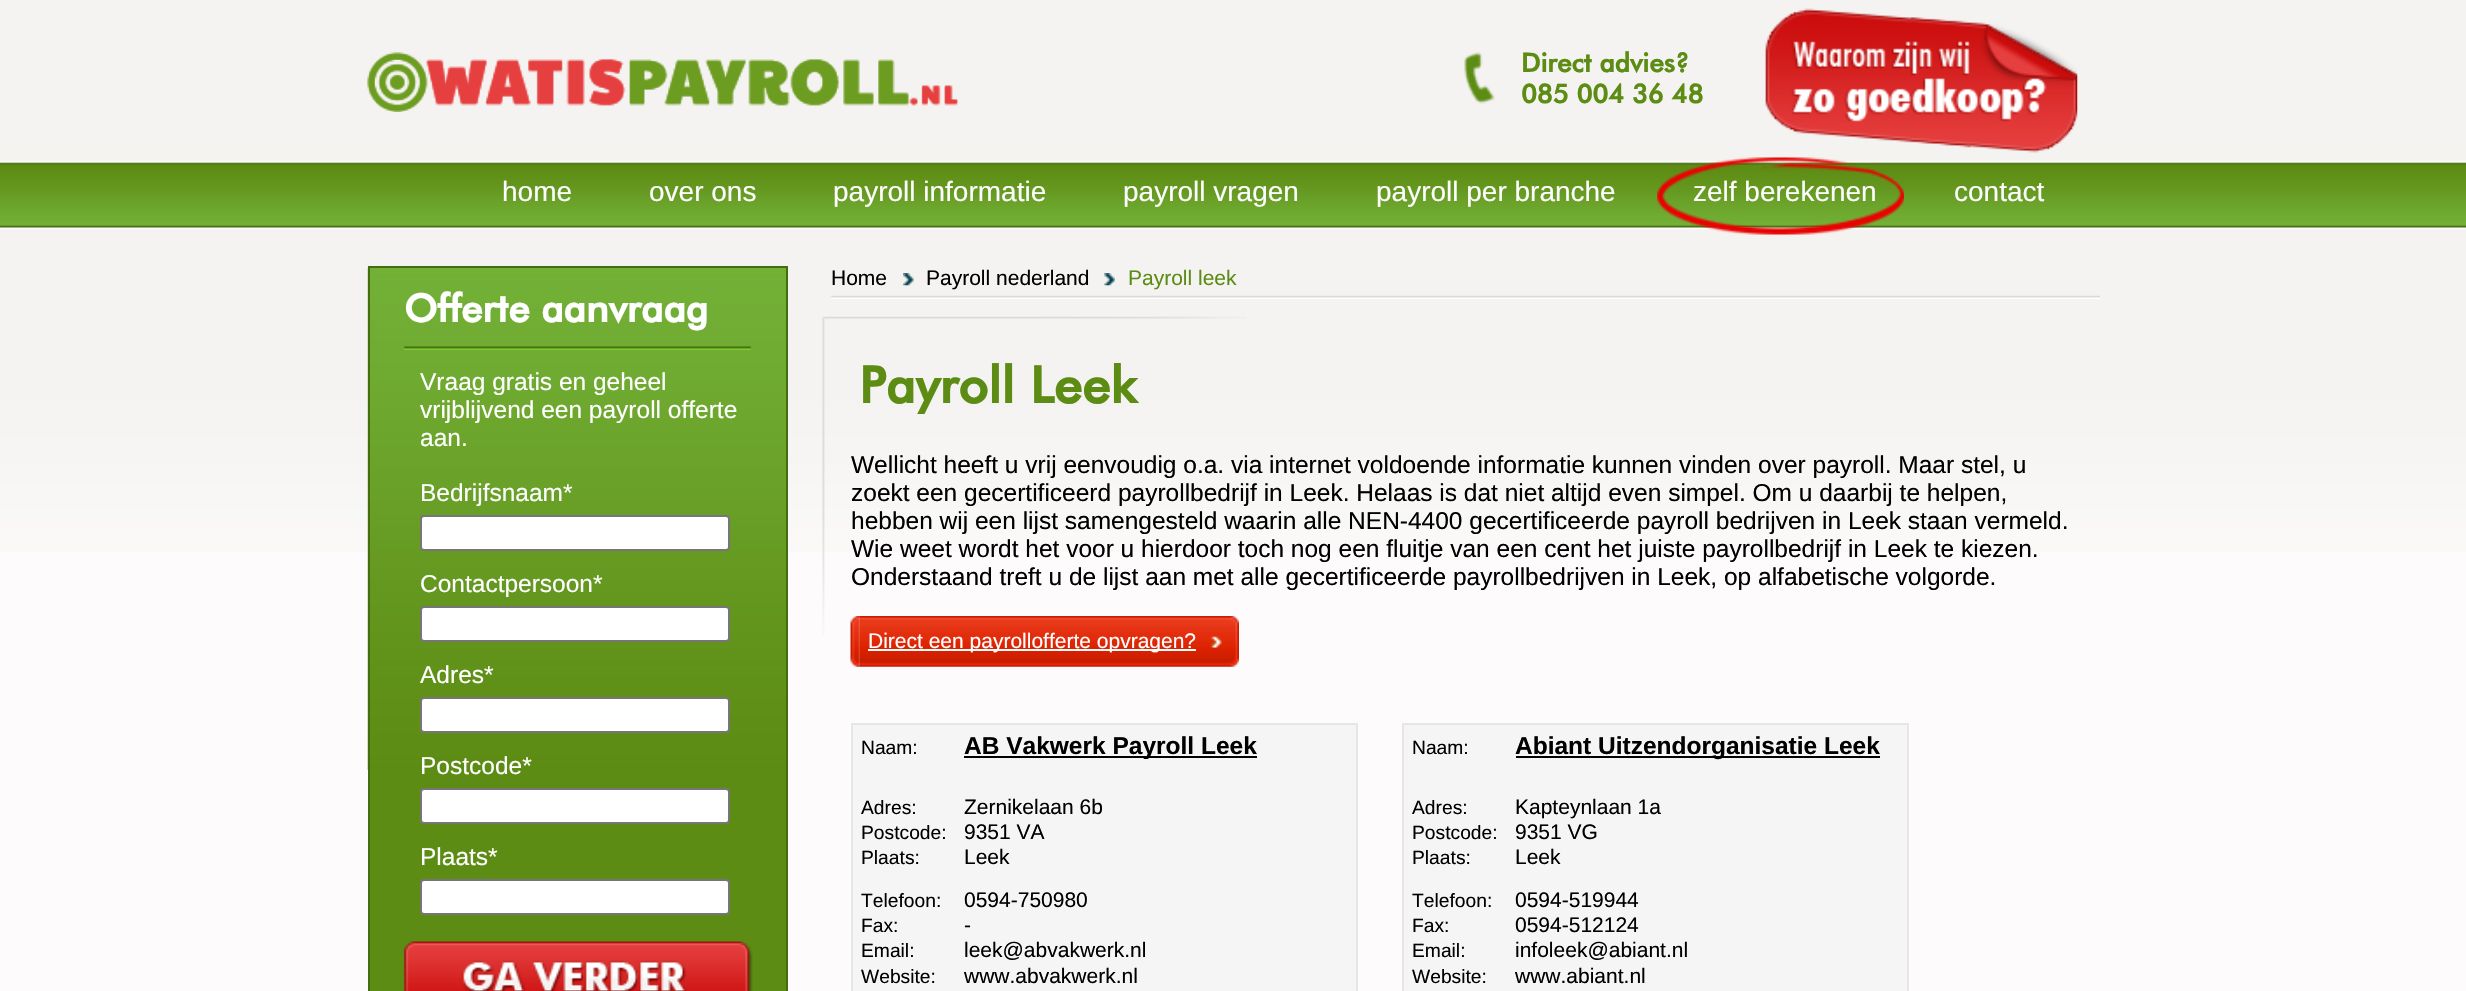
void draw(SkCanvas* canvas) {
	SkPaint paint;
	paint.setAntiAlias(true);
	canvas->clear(0xfffdfbfc);
	canvas->drawImageRect(SkImages::DeferredFromEncodedData(SkData::MakeFromFileName("img1.png")), SkRect::MakeXYWH(0, 0, 2466, 552), SkSamplingOptions());
	canvas->drawImageRect(SkImages::DeferredFromEncodedData(SkData::MakeFromFileName("img2.png")), SkRect::MakeXYWH(367, 52, 591, 60), SkSamplingOptions());
	canvas->drawImageRect(SkImages::DeferredFromEncodedData(SkData::MakeFromFileName("img3.png")), SkRect::MakeXYWH(367, 52, 591, 60), SkSamplingOptions());
	canvas->drawImageRect(SkImages::DeferredFromEncodedData(SkData::MakeFromFileName("img4.png")), SkRect::MakeXYWH(1463, 8, 615, 145), SkSamplingOptions());
	SkFont f1(fontMgr->matchFamilyStyle("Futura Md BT", SkFontStyle::Bold()), 26.25);
	f1.setSubpixel(true);
	paint.setColor(0xff5d8c14);
	canvas->drawString("Direct advies?", 1521, 72, f1, paint);
	canvas->drawString("085 004 36 48", 1521, 103, f1, paint);
	SkFont f2(fontMgr->matchFamilyStyle("Liberation Sans", SkFontStyle::Normal()), 28);
	f2.setSubpixel(true);
	paint.setColor(0xffffffff);
	canvas->drawString("home", 502, 201, f2, paint);
	canvas->drawString("over ons", 649, 201, f2, paint);
	canvas->drawString("payroll informatie", 833, 201, f2, paint);
	canvas->drawString("payroll vragen", 1123, 201, f2, paint);
	canvas->drawString("payroll per branche", 1376, 201, f2, paint);
	canvas->drawImageRect(SkImages::DeferredFromEncodedData(SkData::MakeFromFileName("img5.png")), SkRect::MakeXYWH(1657, 157, 247, 78), SkSamplingOptions());
	canvas->drawString("zelf berekenen", 1693, 201, f2, paint);
	canvas->drawString("contact", 1954, 201, f2, paint);
	paint.setColor(0xff5c8c14);
	canvas->drawRect(SkRect::MakeXYWH(370, 770, 416, 221), paint);
	canvas->drawImageRect(SkImages::DeferredFromEncodedData(SkData::MakeFromFileName("img6.png")), SkRect::MakeXYWH(367, 267, 419, 503), SkSamplingOptions());
	paint.setStroke(true);
	paint.setStrokeWidth(2);
	paint.setColor(0xff446d0f);
	canvas->drawRect(SkRect::MakeXYWH(369, 267, 418, 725), paint);
	canvas->drawImageRect(SkImages::DeferredFromEncodedData(SkData::MakeFromFileName("img7.png")), SkRect::MakeXYWH(404, 346, 347, 4), SkSamplingOptions());
	SkFont f3(fontMgr->matchFamilyStyle("Futura Md BT", SkFontStyle::Bold()), 38.5);
	f3.setSubpixel(true);
	paint.setStroke(false);
	paint.setColor(0xffffffff);
	canvas->drawString("Offerte aanvraag", 404, 322, f3, paint);
	SkFont f4(fontMgr->matchFamilyStyle("Liberation Sans", SkFontStyle::Normal()), 24.5);
	f4.setSubpixel(true);
	canvas->drawString("Vraag gratis en geheel", 420, 390, f4, paint);
	canvas->drawString("vrijblijvend een payroll offerte", 420, 418, f4, paint);
	canvas->drawString("aan.", 420, 446, f4, paint);
	canvas->drawString("Bedrijfsnaam*", 420, 501, f4, paint);
	canvas->drawRoundRect(SkRect::MakeXYWH(421, 516, 308, 34), 3, 3, paint);
	paint.setStroke(true);
	paint.setColor(0xff767676);
	canvas->drawRoundRect(SkRect::MakeXYWH(421, 516, 308, 34), 3, 3, paint);
	paint.setStroke(false);
	paint.setColor(0xffffffff);
	canvas->drawString("Contactpersoon*", 420, 592, f4, paint);
	canvas->drawRoundRect(SkRect::MakeXYWH(421, 607, 308, 34), 3, 3, paint);
	paint.setStroke(true);
	paint.setColor(0xff767676);
	canvas->drawRoundRect(SkRect::MakeXYWH(421, 607, 308, 34), 3, 3, paint);
	paint.setStroke(false);
	paint.setColor(0xffffffff);
	canvas->drawString("Adres*", 420, 683, f4, paint);
	canvas->drawRoundRect(SkRect::MakeXYWH(421, 698, 308, 34), 3, 3, paint);
	paint.setStroke(true);
	paint.setColor(0xff767676);
	canvas->drawRoundRect(SkRect::MakeXYWH(421, 698, 308, 34), 3, 3, paint);
	paint.setStroke(false);
	paint.setColor(0xffffffff);
	canvas->drawString("Postcode*", 420, 774, f4, paint);
	canvas->drawRoundRect(SkRect::MakeXYWH(421, 789, 308, 34), 3, 3, paint);
	paint.setStroke(true);
	paint.setColor(0xff767676);
	canvas->drawRoundRect(SkRect::MakeXYWH(421, 789, 308, 34), 3, 3, paint);
	paint.setStroke(false);
	paint.setColor(0xffffffff);
	canvas->drawString("Plaats*", 420, 865, f4, paint);
	canvas->drawRoundRect(SkRect::MakeXYWH(421, 880, 308, 34), 3, 3, paint);
	paint.setStroke(true);
	paint.setColor(0xff767676);
	canvas->drawRoundRect(SkRect::MakeXYWH(421, 880, 308, 34), 3, 3, paint);
	canvas->drawImageRect(SkImages::DeferredFromEncodedData(SkData::MakeFromFileName("img8.png")), SkRect::MakeXYWH(403, 941, 350, 50), SkSamplingOptions());
	canvas->drawImageRect(SkImages::DeferredFromEncodedData(SkData::MakeFromFileName("img9.png")), SkRect::MakeXYWH(831, 295, 1269, 4), SkSamplingOptions());
	SkFont f5(fontMgr->matchFamilyStyle("Liberation Sans", SkFontStyle::Normal()), 21);
	f5.setSubpixel(true);
	paint.setStroke(false);
	paint.setColor(0xff000000);
	canvas->drawString("Home", 831, 285, f5, paint);
	canvas->drawImageRect(SkImages::DeferredFromEncodedData(SkData::MakeFromFileName("img10.png")), SkRect::MakeXYWH(903, 273, 11, 13), SkSamplingOptions());
	canvas->drawString("Payroll nederland", 926, 285, f5, paint);
	canvas->drawImageRect(SkImages::DeferredFromEncodedData(SkData::MakeFromFileName("img11.png")), SkRect::MakeXYWH(1104, 273, 11, 13), SkSamplingOptions());
	paint.setColor(0xff5d8c14);
	canvas->drawString("Payroll leek", 1128, 285, f5, paint);
	canvas->drawImageRect(SkImages::DeferredFromEncodedData(SkData::MakeFromFileName("img12.png")), SkRect::MakeXYWH(822, 316, 424, 320), SkSamplingOptions());
	SkFont f6(fontMgr->matchFamilyStyle("Futura Md BT", SkFontStyle::Bold()), 50.75);
	f6.setSubpixel(true);
	canvas->drawString("Payroll Leek", 859, 403, f6, paint);
	paint.setColor(0xff000000);
	canvas->drawString("Wellicht heeft u vrij eenvoudig o.a. via internet voldoende informatie kunnen vinden over payroll. Maar stel, u", 851, 473, f4, paint);
	canvas->drawString("zoekt een gecertificeerd payrollbedrijf in Leek. Helaas is dat niet altijd even simpel. Om u daarbij te helpen,", 851, 501, f4, paint);
	canvas->drawString("hebben wij een lijst samengesteld waarin alle NEN-4400 gecertificeerde payroll bedrijven in Leek staan vermeld.", 851, 529, f4, paint);
	canvas->drawString("Wie weet wordt het voor u hierdoor toch nog een fluitje van een cent het juiste payrollbedrijf in Leek te kiezen.", 851, 557, f4, paint);
	canvas->drawString("Onderstaand treft u de lijst aan met alle gecertificeerde payrollbedrijven in Leek, op alfabetische volgorde.", 851, 585, f4, paint);
	canvas->drawImageRect(SkImages::DeferredFromEncodedData(SkData::MakeFromFileName("img13.png")), SkRect::MakeXYWH(850, 616, 10, 51), SkSamplingOptions());
	canvas->drawImageRect(SkImages::DeferredFromEncodedData(SkData::MakeFromFileName("img14.png")), SkRect::MakeXYWH(859, 616, 380, 51), SkSamplingOptions());
	paint.setColor(0xffffffff);
	canvas->drawRect(SkRect::MakeXYWH(868, 649, 327, 2), paint);
	canvas->drawString("Direct een payrollofferte opvragen?", 868, 648, f5, paint);
	paint.setColor(0xfff5f5f5);
	canvas->drawRect(SkRect::MakeXYWH(852, 724, 505, 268), paint);
	paint.setStroke(true);
	paint.setColor(0xffe6e6e6);
	canvas->drawRect(SkRect::MakeXYWH(852, 724, 505, 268), paint);
	SkFont f7(fontMgr->matchFamilyStyle("Liberation Sans", SkFontStyle::Normal()), 19.25);
	f7.setSubpixel(true);
	paint.setStroke(false);
	paint.setColor(0xff000000);
	canvas->drawString("Naam:", 861, 754, f7, paint);
	canvas->drawRect(SkRect::MakeXYWH(964, 756, 293, 2), paint);
	SkFont f8(fontMgr->matchFamilyStyle("Liberation Sans", SkFontStyle::Bold()), 24.5);
	f8.setSubpixel(true);
	canvas->drawString("AB Vakwerk Payroll Leek", 964, 754, f8, paint);
	canvas->drawString("Adres:", 861, 814, f7, paint);
	canvas->drawString("Zernikelaan 6b", 964, 814, f5, paint);
	canvas->drawString("Postcode:", 861, 839, f7, paint);
	canvas->drawString("9351 VA", 964, 839, f5, paint);
	canvas->drawString("Plaats:", 861, 864, f7, paint);
	canvas->drawString("Leek", 964, 864, f5, paint);
	canvas->drawString("Telefoon:", 861, 907, f7, paint);
	canvas->drawString("0594-750980", 964, 907, f5, paint);
	canvas->drawString("Fax:", 861, 932, f7, paint);
	canvas->drawString("-", 964, 932, f5, paint);
	canvas->drawString("Email:", 861, 957, f7, paint);
	canvas->drawString("leek@abvakwerk.nl", 964, 957, f5, paint);
	canvas->drawString("Website:", 861, 983, f7, paint);
	canvas->drawString("www.abvakwerk.nl", 964, 983, f5, paint);
	paint.setColor(0xfff5f5f5);
	canvas->drawRect(SkRect::MakeXYWH(1403, 724, 505, 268), paint);
	paint.setStroke(true);
	paint.setColor(0xffe6e6e6);
	canvas->drawRect(SkRect::MakeXYWH(1403, 724, 505, 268), paint);
	paint.setStroke(false);
	paint.setColor(0xff000000);
	canvas->drawString("Naam:", 1412, 754, f7, paint);
	canvas->drawRect(SkRect::MakeXYWH(1516, 756, 364, 2), paint);
	canvas->drawString("Abiant Uitzendorganisatie Leek", 1515, 754, f8, paint);
	canvas->drawString("Adres:", 1412, 814, f7, paint);
	canvas->drawString("Kapteynlaan 1a", 1515, 814, f5, paint);
	canvas->drawString("Postcode:", 1412, 839, f7, paint);
	canvas->drawString("9351 VG", 1515, 839, f5, paint);
	canvas->drawString("Plaats:", 1412, 864, f7, paint);
	canvas->drawString("Leek", 1515, 864, f5, paint);
	canvas->drawString("Telefoon:", 1412, 907, f7, paint);
	canvas->drawString("0594-519944", 1515, 907, f5, paint);
	canvas->drawString("Fax:", 1412, 932, f7, paint);
	canvas->drawString("0594-512124", 1515, 932, f5, paint);
	canvas->drawString("Email:", 1412, 957, f7, paint);
	canvas->drawString("infoleek@abiant.nl", 1515, 957, f5, paint);
	canvas->drawString("Website:", 1412, 983, f7, paint);
	canvas->drawString("www.abiant.nl", 1515, 983, f5, paint);
}
